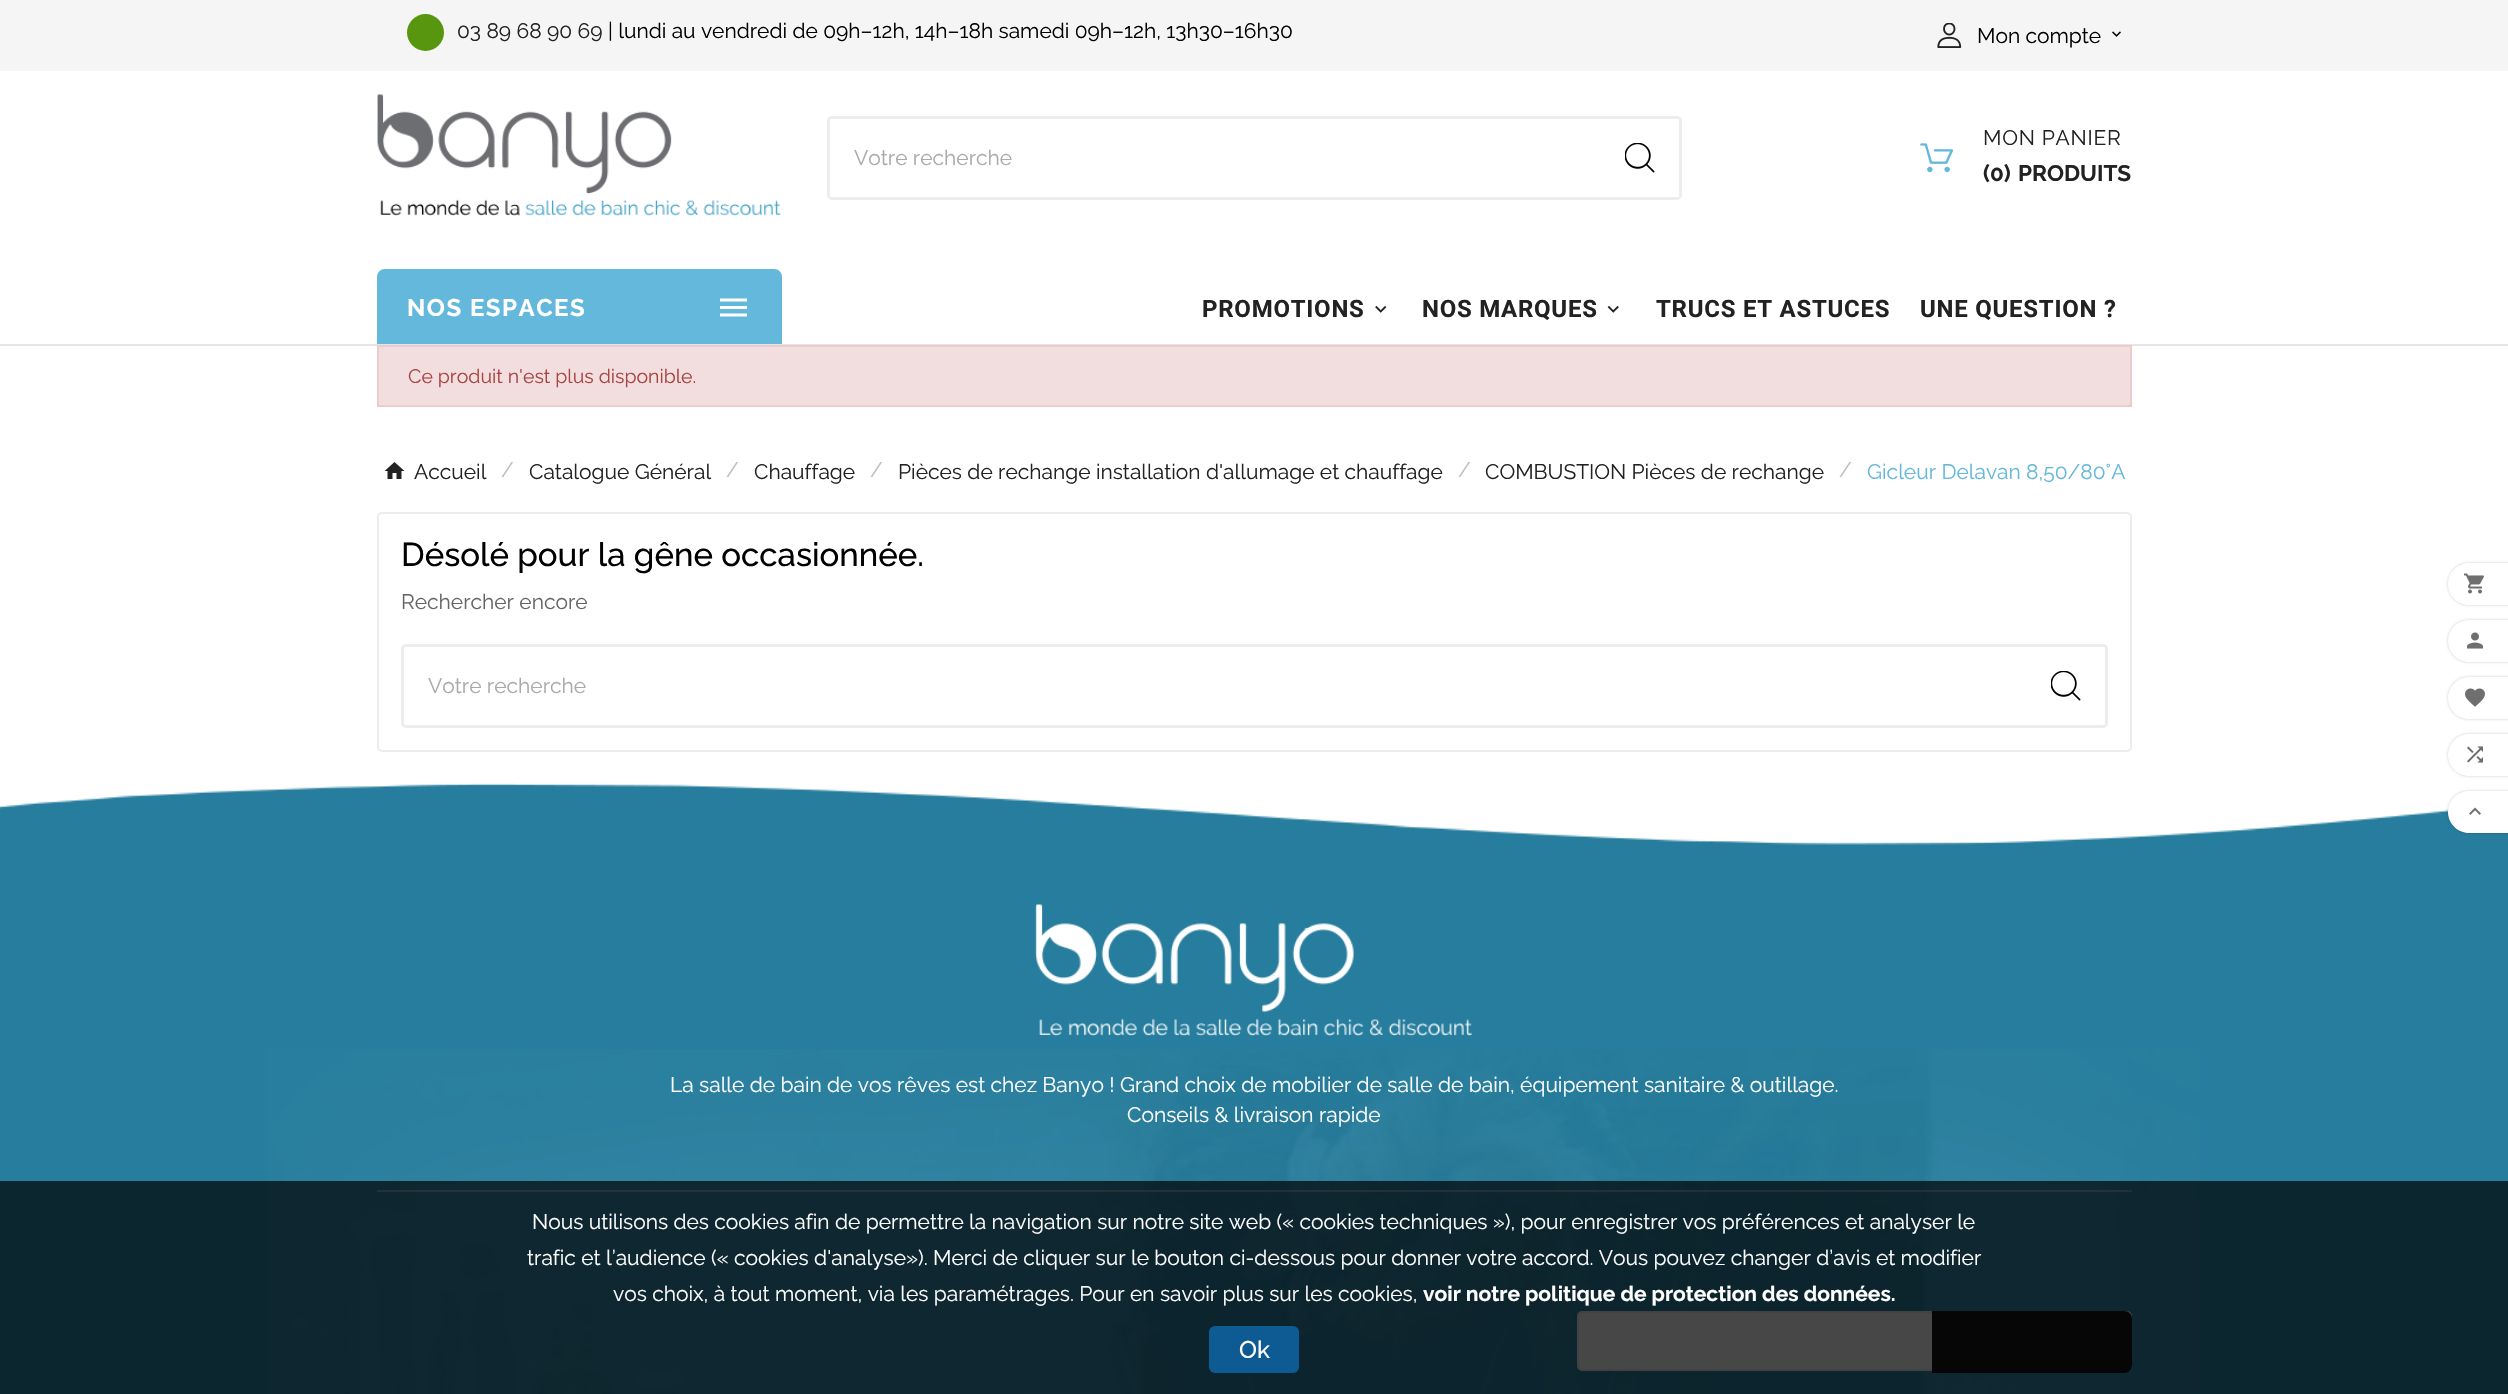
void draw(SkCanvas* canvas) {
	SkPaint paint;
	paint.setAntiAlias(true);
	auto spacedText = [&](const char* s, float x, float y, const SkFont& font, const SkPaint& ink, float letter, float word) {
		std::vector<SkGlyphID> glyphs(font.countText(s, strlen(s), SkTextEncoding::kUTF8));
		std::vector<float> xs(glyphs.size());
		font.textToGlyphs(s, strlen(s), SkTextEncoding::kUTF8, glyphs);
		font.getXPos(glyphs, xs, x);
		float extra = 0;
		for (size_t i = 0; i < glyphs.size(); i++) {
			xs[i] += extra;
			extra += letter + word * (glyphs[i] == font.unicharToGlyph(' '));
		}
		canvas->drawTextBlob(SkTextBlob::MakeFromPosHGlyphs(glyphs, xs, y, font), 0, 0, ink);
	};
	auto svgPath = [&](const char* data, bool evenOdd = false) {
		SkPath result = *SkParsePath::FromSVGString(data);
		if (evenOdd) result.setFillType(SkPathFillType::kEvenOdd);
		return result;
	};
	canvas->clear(0xffffffff);
	paint.setColor(0xffe5e5e5);
	canvas->drawRect(SkRect::MakeXYWH(0, 344, 2508, 2), paint);
	paint.setColor(0xfff5f5f5);
	canvas->drawRect(SkRect::MakeXYWH(0, 0, 2508, 71), paint);
	paint.setColor(0xff599610);
	canvas->drawCircle(425.5, 32.5, 18.5, paint);
	SkFont f1(fontMgr->matchFamilyStyle("Raleway", SkFontStyle::Normal()), 21);
	f1.setSubpixel(true);
	paint.setColor(0xff222222);
	canvas->drawString("03 89 68 90 69", 457, 38, f1, paint);
	paint.setColor(0xff000000);
	canvas->drawString("| lundi au vendredi de 09h–12h, 14h–18h samedi 09h–12h, 13h30–16h30", 608, 38, f1, paint);
	canvas->drawImageRect(SkImages::DeferredFromEncodedData(SkData::MakeFromFileName("img1.png")), SkRect::MakeXYWH(1937, 23, 25, 25), SkSamplingOptions());
	canvas->drawString("Mon compte", 1977, 43, f1, paint);
	canvas->drawImageRect(SkImages::DeferredFromEncodedData(SkData::MakeFromFileName("img2.png")), SkRect::MakeXYWH(2112, 31, 9, 6), SkSamplingOptions());
	canvas->drawImageRect(SkImages::DeferredFromEncodedData(SkData::MakeFromFileName("img3.png")), SkRect::MakeXYWH(377, 94, 404, 122), SkSamplingOptions());
	paint.setStroke(true);
	paint.setStrokeWidth(3);
	paint.setColor(0xffededed);
	canvas->drawRoundRect(SkRect::MakeXYWH(828.5, 117.5, 852, 81), 3.5, 3.5, paint);
	paint.setStroke(false);
	paint.setColor(0xffffffff);
	canvas->drawPath(svgPath("M831.5 119H1601V197H831.5C830.5 197 830 196.5 830 195.5V120.5C830 119.5 830.5 119 831.5 119Z"), paint);
	paint.setColor(0xffaaaaaa);
	canvas->drawString("Votre recherche", 854, 165, f1, paint);
	paint.setColor(0xffffffff);
	canvas->drawPath(svgPath("M1601 119H1677.5C1678.5 119 1679 119.5 1679 120.5V195.5C1679 196.5 1678.5 197 1677.5 197H1601Z"), paint);
	canvas->drawImageRect(SkImages::DeferredFromEncodedData(SkData::MakeFromFileName("img4.png")), SkRect::MakeXYWH(1625, 143, 30, 30), SkSamplingOptions());
	canvas->drawImageRect(SkImages::DeferredFromEncodedData(SkData::MakeFromFileName("img5.png")), SkRect::MakeXYWH(1920, 143, 33, 30), SkSamplingOptions());
	paint.setColor(0xff222222);
	spacedText("MON PANIER", 1983, 145, f1, paint, 0.75, 0);
	SkFont f2(fontMgr->matchFamilyStyle("Raleway", SkFontStyle::Bold()), 22.5);
	f2.setSubpixel(true);
	canvas->drawString("(0)", 1983, 181, f2, paint);
	canvas->drawString("PRODUITS", 2018, 181, f2, paint);
	paint.setColor(0xff64b8dc);
	canvas->drawPath(svgPath("M385 269H774C778.5 269 782 272.5 782 277V344H377V277C377 272.5 380.5 269 385 269Z"), paint);
	SkFont f3(fontMgr->matchFamilyStyle("Raleway", SkFontStyle::Bold()), 24);
	f3.setSubpixel(true);
	paint.setColor(0xffffffff);
	spacedText("NOS ESPACES", 407, 316, f3, paint, 1.5, 0);
	canvas->drawImageRect(SkImages::DeferredFromEncodedData(SkData::MakeFromFileName("img6.png")), SkRect::MakeXYWH(720, 298, 27, 19), SkSamplingOptions());
	SkFont f4(fontMgr->matchFamilyStyle("Roboto", SkFontStyle::Bold()), 24);
	f4.setSubpixel(true);
	paint.setColor(0xff222222);
	spacedText("PROMOTIONS", 1202, 317, f4, paint, 0.75, 0);
	canvas->drawImageRect(SkImages::DeferredFromEncodedData(SkData::MakeFromFileName("img7.png")), SkRect::MakeXYWH(1375, 305, 12, 8), SkSamplingOptions());
	spacedText("NOS MARQUES", 1422, 317, f4, paint, 0.75, 0);
	canvas->drawImageRect(SkImages::DeferredFromEncodedData(SkData::MakeFromFileName("img8.png")), SkRect::MakeXYWH(1607, 305, 12, 8), SkSamplingOptions());
	spacedText("TRUCS ET ASTUCES", 1656, 317, f4, paint, 0.75, 0);
	spacedText("UNE QUESTION ?", 1920, 317, f4, paint, 0.75, 0);
	paint.setColor(0xfff2dede);
	canvas->drawRect(SkRect::MakeXYWH(378, 346, 1753, 60), paint);
	paint.setStroke(true);
	paint.setStrokeWidth(2);
	paint.setColor(0xffebcccc);
	canvas->drawRect(SkRect::MakeXYWH(378, 346, 1753, 60), paint);
	SkFont f5(fontMgr->matchFamilyStyle("Raleway", SkFontStyle::Normal()), 19.5);
	f5.setSubpixel(true);
	paint.setStroke(false);
	paint.setColor(0xffa94442);
	canvas->drawString("Ce produit n'est plus disponible.", 408, 383, f5, paint);
	canvas->drawImageRect(SkImages::DeferredFromEncodedData(SkData::MakeFromFileName("img9.png")), SkRect::MakeXYWH(384, 462, 21, 17), SkSamplingOptions());
	paint.setColor(0xff222222);
	canvas->drawString("Accueil", 414, 479, f1, paint);
	paint.setColor(0xffbdbdbd);
	canvas->drawString("/", 501, 477, f1, paint);
	paint.setColor(0xff222222);
	canvas->drawString("Catalogue Général", 529, 479, f1, paint);
	paint.setColor(0xffbdbdbd);
	canvas->drawString("/", 726, 477, f1, paint);
	paint.setColor(0xff222222);
	canvas->drawString("Chauffage", 754, 479, f1, paint);
	paint.setColor(0xffbdbdbd);
	canvas->drawString("/", 870, 477, f1, paint);
	paint.setColor(0xff222222);
	canvas->drawString("Pièces de rechange installation d'allumage et chauffage", 898, 479, f1, paint);
	paint.setColor(0xffbdbdbd);
	canvas->drawString("/", 1458, 477, f1, paint);
	paint.setColor(0xff222222);
	canvas->drawString("COMBUSTION Pièces de rechange", 1485, 479, f1, paint);
	paint.setColor(0xffbdbdbd);
	canvas->drawString("/", 1839, 477, f1, paint);
	paint.setColor(0xff64b8dc);
	canvas->drawString("Gicleur Delavan 8,50/80°A", 1867, 479, f1, paint);
	paint.setStroke(true);
	paint.setColor(0xffededed);
	canvas->drawRoundRect(SkRect::MakeXYWH(378, 513, 1753, 238), 4, 4, paint);
	SkFont f6(fontMgr->matchFamilyStyle("Raleway", SkFontStyle(500, SkFontStyle::kNormal_Width, SkFontStyle::kUpright_Slant)), 33);
	f6.setSubpixel(true);
	paint.setStroke(false);
	paint.setColor(0xff000000);
	canvas->drawString("Désolé pour la gêne occasionnée.", 401, 566, f6, paint);
	paint.setColor(0xff666666);
	canvas->drawString("Rechercher encore", 401, 609, f1, paint);
	paint.setStroke(true);
	paint.setStrokeWidth(3);
	paint.setColor(0xffededed);
	canvas->drawRoundRect(SkRect::MakeXYWH(402.5, 645.5, 1704, 81), 3.5, 3.5, paint);
	paint.setStroke(false);
	paint.setColor(0xffffffff);
	canvas->drawPath(svgPath("M405.5 647H2027V725H405.5C404.5 725 404 724.5 404 723.5V648.5C404 647.5 404.5 647 405.5 647Z"), paint);
	paint.setColor(0xffaaaaaa);
	canvas->drawString("Votre recherche", 428, 693, f1, paint);
	paint.setColor(0xffffffff);
	canvas->drawPath(svgPath("M2027 647H2103.5C2104.5 647 2105 647.5 2105 648.5V723.5C2105 724.5 2104.5 725 2103.5 725H2027Z"), paint);
	canvas->drawImageRect(SkImages::DeferredFromEncodedData(SkData::MakeFromFileName("img4.png")), SkRect::MakeXYWH(2051, 671, 30, 30), SkSamplingOptions());
	paint.setColor(0xff267d9d);
	canvas->drawRect(SkRect::MakeXYWH(0, 845, 2508, 549), paint);
	canvas->drawImageRect(SkImages::DeferredFromEncodedData(SkData::MakeFromFileName("img10.png")), SkRect::MakeXYWH(266, 1049, 1934, 345), SkSamplingOptions());
	paint.setColor(0xffbed8e2);
	canvas->drawRect(SkRect::MakeXYWH(1715, 843, 319, 2), paint);
	canvas->drawImageRect(SkImages::DeferredFromEncodedData(SkData::MakeFromFileName("img11.png")), SkRect::MakeXYWH(0, 783, 2508, 62), SkSamplingOptions());
	paint.setColor(0x33000000);
	paint.setMaskFilter(SkMaskFilter::MakeBlur(kNormal_SkBlurStyle, 1.5));
	canvas->drawRoundRect(SkRect::MakeXYWH(2448, 563, 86, 42), 21, 21, paint);
	paint.setMaskFilter(nullptr);
	paint.setColor(0xffffffff);
	canvas->drawPath(svgPath("M2469 563H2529V605H2469C2457.5 605 2448 595.5 2448 584C2448 572.5 2457.5 563 2469 563Z"), paint);
	canvas->drawImageRect(SkImages::DeferredFromEncodedData(SkData::MakeFromFileName("img12.png")), SkRect::MakeXYWH(2464, 573, 20, 21), SkSamplingOptions());
	paint.setColor(0x33000000);
	paint.setMaskFilter(SkMaskFilter::MakeBlur(kNormal_SkBlurStyle, 1.5));
	canvas->drawRoundRect(SkRect::MakeXYWH(2448, 620, 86, 42), 21, 21, paint);
	paint.setMaskFilter(nullptr);
	paint.setColor(0xffffffff);
	canvas->drawPath(svgPath("M2469 620H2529V662H2469C2457.5 662 2448 652.5 2448 641C2448 629.5 2457.5 620 2469 620Z"), paint);
	canvas->drawImageRect(SkImages::DeferredFromEncodedData(SkData::MakeFromFileName("img13.png")), SkRect::MakeXYWH(2467, 632, 16, 17), SkSamplingOptions());
	paint.setColor(0x33000000);
	paint.setMaskFilter(SkMaskFilter::MakeBlur(kNormal_SkBlurStyle, 1.5));
	canvas->drawRoundRect(SkRect::MakeXYWH(2448, 677, 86, 42), 21, 21, paint);
	paint.setMaskFilter(nullptr);
	paint.setColor(0xffffffff);
	canvas->drawPath(svgPath("M2469 677H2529V719H2469C2457.5 719 2448 709.5 2448 698C2448 686.5 2457.5 677 2469 677Z"), paint);
	canvas->drawImageRect(SkImages::DeferredFromEncodedData(SkData::MakeFromFileName("img14.png")), SkRect::MakeXYWH(2465, 688, 20, 19), SkSamplingOptions());
	paint.setColor(0x33000000);
	paint.setMaskFilter(SkMaskFilter::MakeBlur(kNormal_SkBlurStyle, 1.5));
	canvas->drawRoundRect(SkRect::MakeXYWH(2448, 734, 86, 42), 21, 21, paint);
	paint.setMaskFilter(nullptr);
	paint.setColor(0xffffffff);
	canvas->drawPath(svgPath("M2469 734H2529V776H2469C2457.5 776 2448 766.5 2448 755C2448 743.5 2457.5 734 2469 734Z"), paint);
	canvas->drawImageRect(SkImages::DeferredFromEncodedData(SkData::MakeFromFileName("img15.png")), SkRect::MakeXYWH(2467, 746, 16, 17), SkSamplingOptions());
	paint.setColor(0x33000000);
	paint.setMaskFilter(SkMaskFilter::MakeBlur(kNormal_SkBlurStyle, 1.5));
	canvas->drawRoundRect(SkRect::MakeXYWH(2448, 791, 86, 42), 21, 21, paint);
	paint.setMaskFilter(nullptr);
	paint.setColor(0xffffffff);
	canvas->drawPath(svgPath("M2469 791H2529V833H2469C2457.5 833 2448 823.5 2448 812C2448 800.5 2457.5 791 2469 791Z"), paint);
	canvas->drawImageRect(SkImages::DeferredFromEncodedData(SkData::MakeFromFileName("img16.png")), SkRect::MakeXYWH(2469, 807, 12, 8), SkSamplingOptions());
	paint.setColor(0x4dffffff);
	canvas->drawRect(SkRect::MakeXYWH(377, 1190, 1755, 2), paint);
	canvas->drawImageRect(SkImages::DeferredFromEncodedData(SkData::MakeFromFileName("img17.png")), SkRect::MakeXYWH(1035, 904, 437, 132), SkSamplingOptions());
	paint.setColor(0xffffffff);
	canvas->drawString("La salle de bain de vos rêves est chez Banyo ! Grand choix de mobilier de salle de bain, équipement sanitaire & outillage.", 670, 1092, f1, paint);
	canvas->drawString("Conseils & livraison rapide", 1127, 1122, f1, paint);
	paint.setColor(0xffeeeeee);
	canvas->drawRoundRect(SkRect::MakeXYWH(1578, 1312, 553, 58), 4, 4, paint);
	paint.setStroke(true);
	paint.setStrokeWidth(2);
	paint.setColor(0xffdddddd);
	canvas->drawRoundRect(SkRect::MakeXYWH(1578, 1312, 553, 58), 4, 4, paint);
	paint.setStroke(false);
	paint.setColor(0xff111111);
	canvas->drawPath(svgPath("M1932 1311H2124C2128.5 1311 2132 1314.5 2132 1319V1365C2132 1369.5 2128.5 1373 2124 1373H1932Z"), paint);
	paint.setColor(0xb3000000);
	canvas->drawRect(SkRect::MakeXYWH(0, 1181, 2508, 213), paint);
	paint.setColor(0xffffffff);
	canvas->drawString("Nous utilisons des cookies afin de permettre la navigation sur notre site web (« cookies techniques »), pour enregistrer vos préférences et analyser le", 532, 1229, f1, paint);
	canvas->drawString("trafic et l’audience (« cookies d'analyse»). Merci de cliquer sur le bouton ci-dessous pour donner votre accord. Vous pouvez changer d’avis et modifier", 527, 1265, f1, paint);
	canvas->drawString("vos choix, à tout moment, via les paramétrages. Pour en savoir plus sur les cookies,", 613, 1301, f1, paint);
	SkFont f7(fontMgr->matchFamilyStyle("Raleway", SkFontStyle::Bold()), 21);
	f7.setSubpixel(true);
	canvas->drawString("voir notre politique de protection des données.", 1423, 1301, f7, paint);
	paint.setColor(0xff0e5b93);
	canvas->drawRoundRect(SkRect::MakeXYWH(1209, 1326, 90, 47), 6, 6, paint);
	SkFont f8(fontMgr->matchFamilyStyle("Raleway", SkFontStyle(500, SkFontStyle::kNormal_Width, SkFontStyle::kUpright_Slant)), 24);
	f8.setSubpixel(true);
	paint.setColor(0xffffffff);
	canvas->drawString("Ok", 1239, 1358, f8, paint);
}
